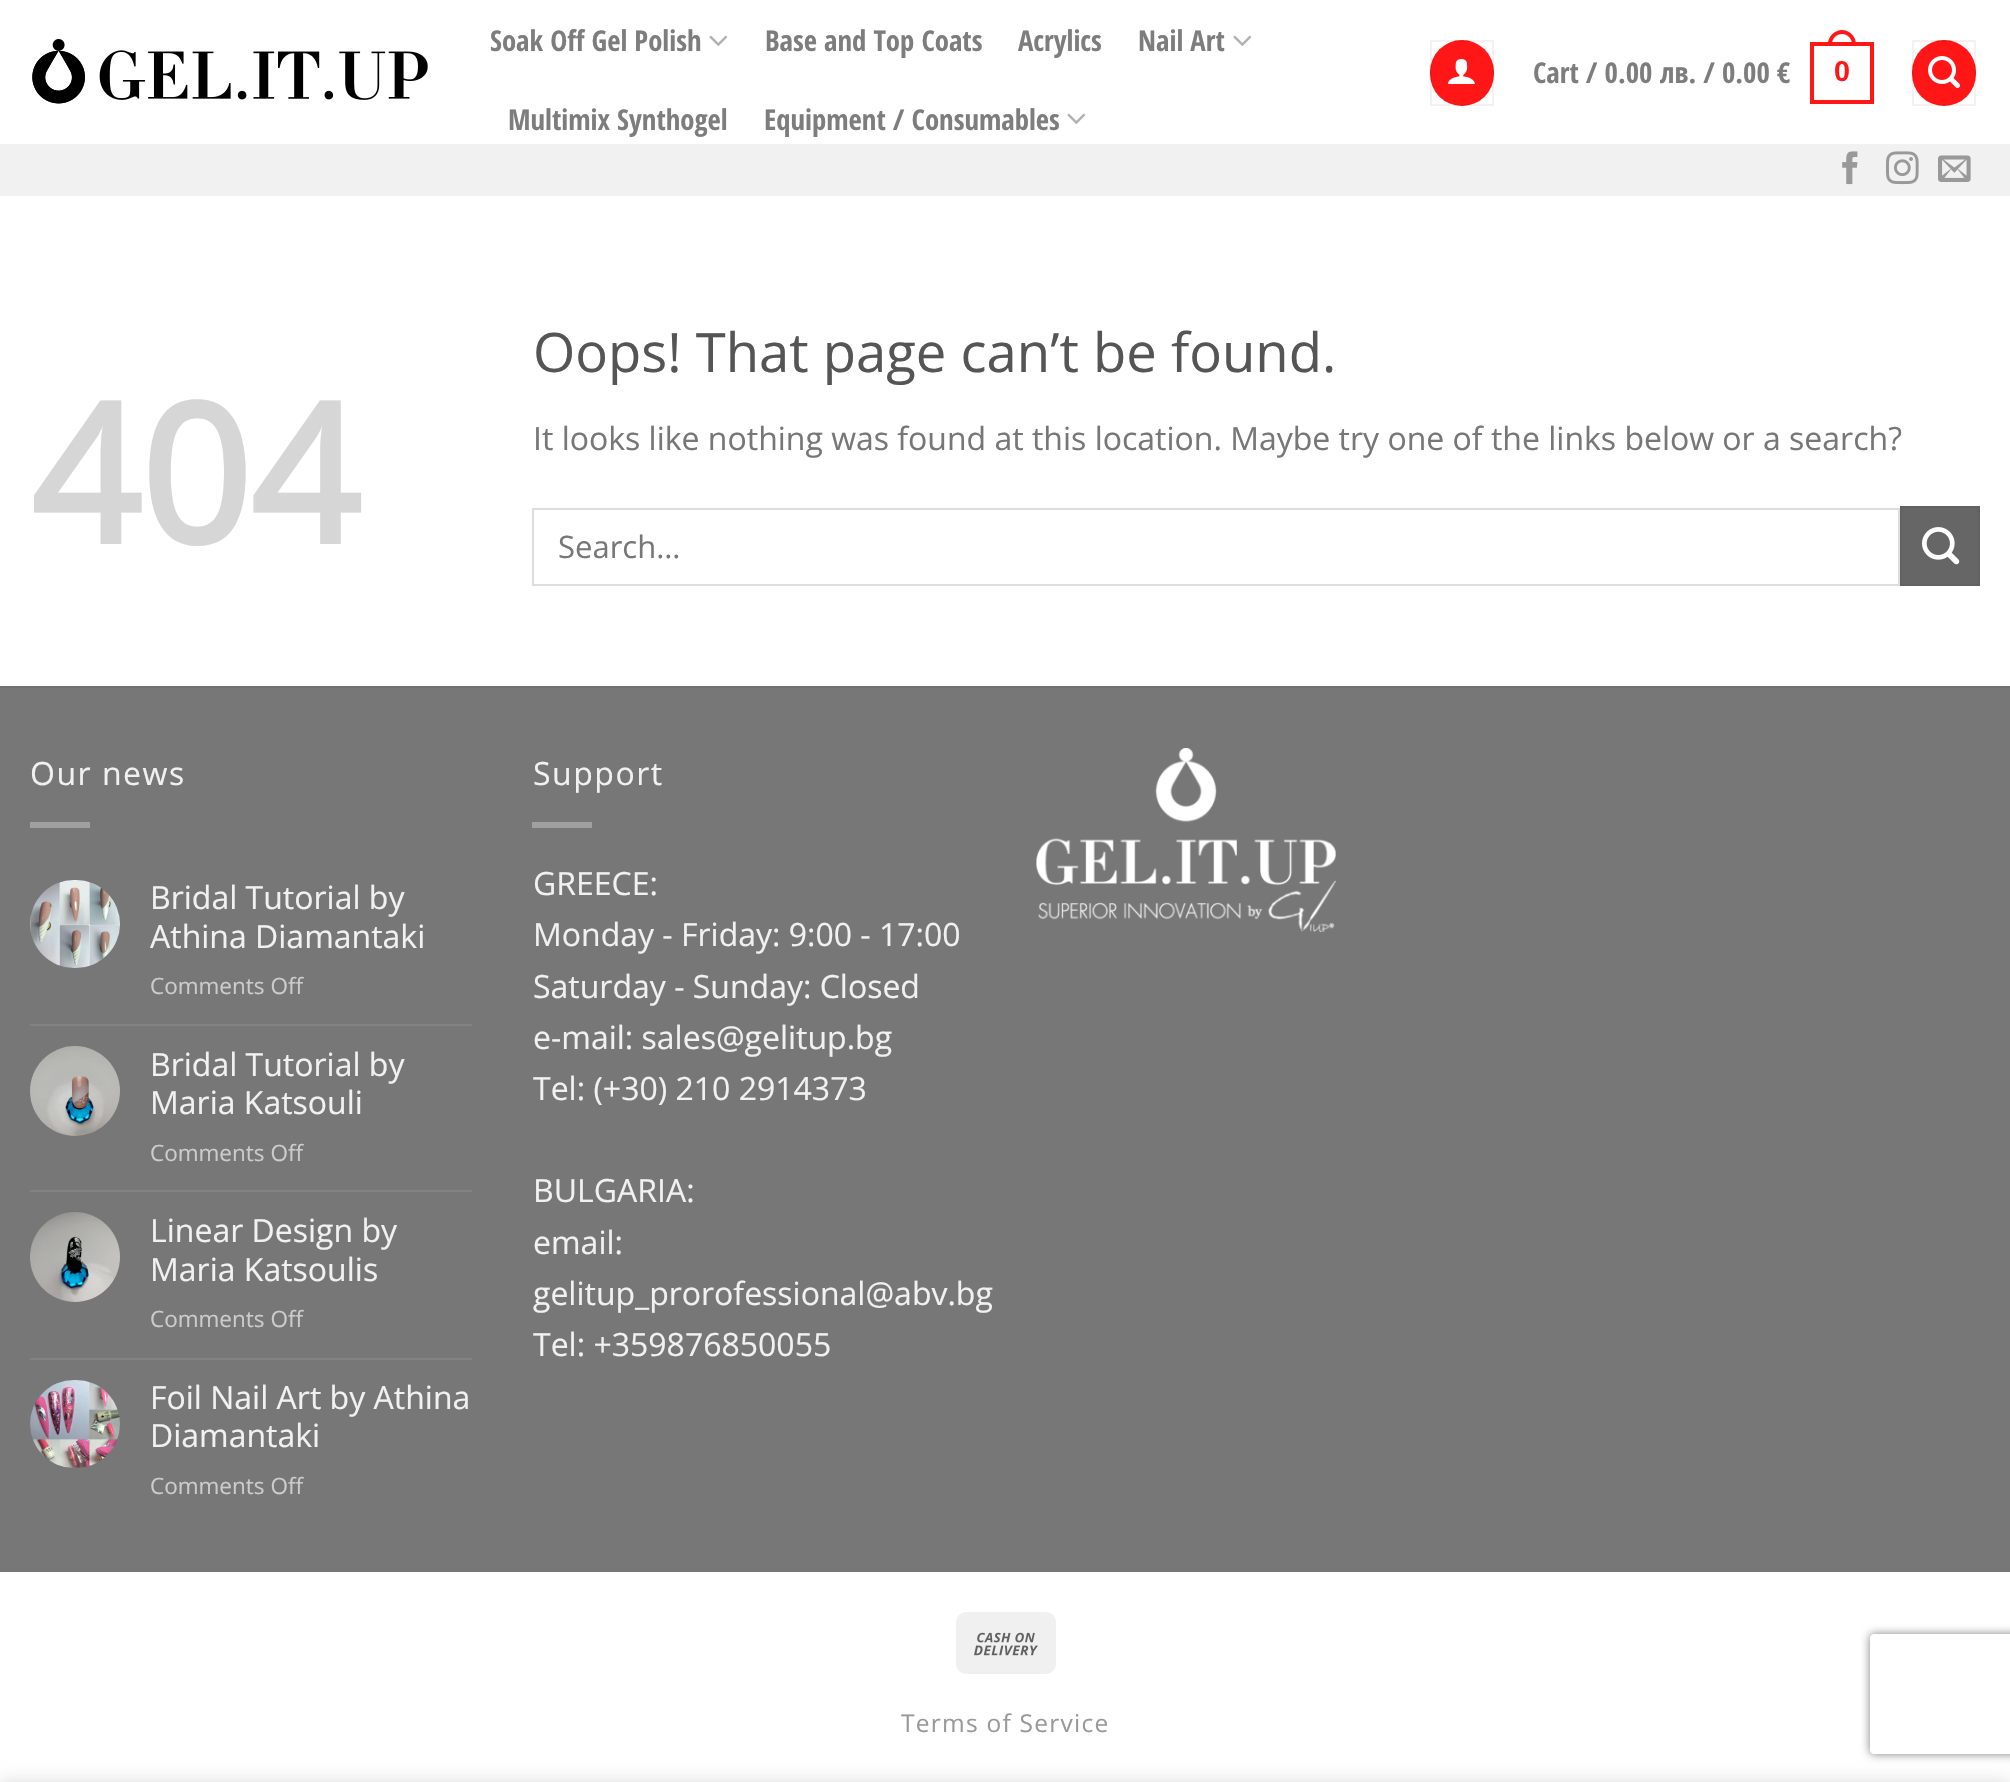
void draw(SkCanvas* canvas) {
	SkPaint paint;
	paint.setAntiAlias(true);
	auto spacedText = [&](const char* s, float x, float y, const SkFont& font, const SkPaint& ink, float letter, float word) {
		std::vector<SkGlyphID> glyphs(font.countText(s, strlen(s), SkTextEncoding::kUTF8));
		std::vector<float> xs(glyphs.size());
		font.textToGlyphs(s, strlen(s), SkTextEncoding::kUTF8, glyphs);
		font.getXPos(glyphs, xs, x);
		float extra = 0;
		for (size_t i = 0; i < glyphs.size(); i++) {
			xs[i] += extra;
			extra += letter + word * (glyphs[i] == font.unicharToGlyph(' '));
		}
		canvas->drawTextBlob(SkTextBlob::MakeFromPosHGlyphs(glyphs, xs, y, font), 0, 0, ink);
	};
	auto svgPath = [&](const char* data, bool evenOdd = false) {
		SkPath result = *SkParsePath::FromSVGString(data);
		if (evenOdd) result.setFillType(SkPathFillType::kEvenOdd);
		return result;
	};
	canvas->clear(0xffffffff);
	canvas->drawImageRect(SkImages::DeferredFromEncodedData(SkData::MakeFromFileName("img1.png")), SkRect::MakeXYWH(32, 39, 396, 65), SkSamplingOptions());
	SkFont f1(fontMgr->matchFamilyStyle("Open Sans Condensed", SkFontStyle::Bold()), 28.75);
	f1.setSubpixel(true);
	paint.setColor(0xff7d7d7d);
	canvas->drawString("Soak Off Gel Polish", 490, 51, f1, paint);
	canvas->drawImageRect(SkImages::DeferredFromEncodedData(SkData::MakeFromFileName("img2.png")), SkRect::MakeXYWH(709, 35, 19, 11), SkSamplingOptions());
	canvas->drawString("Base and Top Coats", 765, 51, f1, paint);
	canvas->drawString("Acrylics", 1018, 51, f1, paint);
	canvas->drawString("Nail Art", 1138, 51, f1, paint);
	canvas->drawImageRect(SkImages::DeferredFromEncodedData(SkData::MakeFromFileName("img2.png")), SkRect::MakeXYWH(1233, 35, 19, 11), SkSamplingOptions());
	canvas->drawString("Multimix Synthogel", 508, 130, f1, paint);
	canvas->drawString("Equipment / Consumables", 764, 130, f1, paint);
	canvas->drawImageRect(SkImages::DeferredFromEncodedData(SkData::MakeFromFileName("img2.png")), SkRect::MakeXYWH(1067, 113, 19, 11), SkSamplingOptions());
	paint.setColor(0xffff1616);
	canvas->drawRoundRect(SkRect::MakeXYWH(1430, 40, 64, 66), 32, 32, paint);
	paint.setStroke(true);
	paint.setStrokeWidth(2);
	paint.setColor(0x0d000000);
	canvas->drawRect(SkRect::MakeXYWH(1431, 41, 62, 64), paint);
	canvas->drawImageRect(SkImages::DeferredFromEncodedData(SkData::MakeFromFileName("img3.png")), SkRect::MakeXYWH(1448, 59, 27, 25), SkSamplingOptions());
	paint.setStroke(false);
	paint.setColor(0xff7d7d7d);
	canvas->drawString("Cart / 0.00", 1533, 83, f1, paint);
	canvas->drawString("лв. / 0.00 €", 1660, 83, f1, paint);
	paint.setStroke(true);
	paint.setStrokeWidth(4);
	paint.setColor(0xffff1616);
	canvas->drawRect(SkRect::MakeXYWH(1812, 44, 60, 58), paint);
	paint.setStroke(false);
	canvas->drawPath(svgPath("M1842 30C1849.5 30 1856 36.5 1856 44V46H1828V44C1828 36.5 1834.5 30 1842 30ZM1842 34C1847.5 34 1852 38.5 1852 44V46H1832V44C1832 38.5 1836.5 34 1842 34Z", true), paint);
	SkFont f2(fontMgr->matchFamilyStyle("Liberation Sans", SkFontStyle::Bold()), 28.75);
	f2.setSubpixel(true);
	canvas->drawString("0", 1834, 81, f2, paint);
	canvas->drawRoundRect(SkRect::MakeXYWH(1912, 40, 64, 66), 32, 32, paint);
	paint.setStroke(true);
	paint.setStrokeWidth(2);
	paint.setColor(0x0d000000);
	canvas->drawRect(SkRect::MakeXYWH(1913, 41, 62, 64), paint);
	canvas->drawImageRect(SkImages::DeferredFromEncodedData(SkData::MakeFromFileName("img4.png")), SkRect::MakeXYWH(1928, 56, 32, 32), SkSamplingOptions());
	paint.setStroke(false);
	paint.setColor(0xfff1f1f1);
	canvas->drawRect(SkRect::MakeXYWH(0, 144, 2010, 52), paint);
	canvas->drawImageRect(SkImages::DeferredFromEncodedData(SkData::MakeFromFileName("img5.png")), SkRect::MakeXYWH(1842, 151, 16, 34), SkSamplingOptions());
	canvas->drawImageRect(SkImages::DeferredFromEncodedData(SkData::MakeFromFileName("img6.png")), SkRect::MakeXYWH(1886, 151, 33, 34), SkSamplingOptions());
	canvas->drawImageRect(SkImages::DeferredFromEncodedData(SkData::MakeFromFileName("img7.png")), SkRect::MakeXYWH(1938, 155, 33, 27), SkSamplingOptions());
	SkFont f3(fontMgr->matchFamilyStyle("Open Sans", SkFontStyle::Bold()), 192);
	f3.setSubpixel(true);
	paint.setColor(0xffd6d6d6);
	canvas->drawString("404", 30, 544, f3, paint);
	SkFont f4(fontMgr->matchFamilyStyle("Open Sans", SkFontStyle::Normal()), 54.4);
	f4.setSubpixel(true);
	paint.setColor(0xff555555);
	canvas->drawString("Oops! That page can’t be found.", 533, 372, f4, paint);
	SkFont f5(fontMgr->matchFamilyStyle("Open Sans", SkFontStyle::Normal()), 32);
	f5.setSubpixel(true);
	paint.setColor(0xff777777);
	canvas->drawString("It looks like nothing was found at this location. Maybe try one of the links below or a search?", 533, 450, f5, paint);
	paint.setStroke(true);
	paint.setColor(0xffdddddd);
	canvas->drawRect(SkRect::MakeXYWH(533, 509, 1366, 76), paint);
	SkFont f6(fontMgr->matchFamilyStyle("Open Sans", SkFontStyle::Normal()), 31);
	f6.setSubpixel(true);
	paint.setStroke(false);
	paint.setColor(0xff777777);
	canvas->drawString("Search…", 558, 558, f6, paint);
	paint.setColor(0xff666666);
	canvas->drawRect(SkRect::MakeXYWH(1901, 507, 78, 78), paint);
	paint.setStroke(true);
	paint.setColor(0xff616161);
	canvas->drawRect(SkRect::MakeXYWH(1901, 507, 78, 78), paint);
	canvas->drawImageRect(SkImages::DeferredFromEncodedData(SkData::MakeFromFileName("img8.png")), SkRect::MakeXYWH(1922, 527, 38, 38), SkSamplingOptions());
	paint.setStroke(false);
	paint.setColor(0xff777777);
	canvas->drawRect(SkRect::MakeXYWH(0, 688, 2010, 884), paint);
	paint.setColor(0xff717171);
	canvas->drawRect(SkRect::MakeXYWH(0, 686, 2010, 2), paint);
	SkFont f7(fontMgr->matchFamilyStyle("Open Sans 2", SkFontStyle::Normal()), 32);
	f7.setSubpixel(true);
	paint.setColor(0xfff1f1f1);
	spacedText("Our news", 30, 785, f7, paint, 1.5, 0);
	paint.setColor(0xffa0a0a0);
	canvas->drawRect(SkRect::MakeXYWH(30, 822, 60, 6), paint);
	canvas->drawImageRect(SkImages::DeferredFromEncodedData(SkData::MakeFromFileName("img9.png")), SkRect::MakeXYWH(30, 880, 90, 88), SkSamplingOptions());
	paint.setColor(0xfff1f1f1);
	canvas->drawString("Bridal Tutorial by", 150, 909, f5, paint);
	canvas->drawString("Athina Diamantaki", 150, 948, f5, paint);
	SkFont f8(fontMgr->matchFamilyStyle("Open Sans", SkFontStyle::Normal()), 22.5);
	f8.setSubpixel(true);
	paint.setColor(0xffcccccc);
	canvas->drawString("Comments Off", 150, 994, f8, paint);
	paint.setColor(0xff828282);
	canvas->drawRect(SkRect::MakeXYWH(30, 1024, 442, 2), paint);
	canvas->drawImageRect(SkImages::DeferredFromEncodedData(SkData::MakeFromFileName("img10.png")), SkRect::MakeXYWH(30, 1046, 90, 90), SkSamplingOptions());
	paint.setColor(0xfff1f1f1);
	canvas->drawString("Bridal Tutorial by", 150, 1076, f5, paint);
	canvas->drawString("Maria Katsouli", 150, 1114, f5, paint);
	paint.setColor(0xffcccccc);
	canvas->drawString("Comments Off", 150, 1161, f8, paint);
	paint.setColor(0xff828282);
	canvas->drawRect(SkRect::MakeXYWH(30, 1190, 442, 2), paint);
	canvas->drawImageRect(SkImages::DeferredFromEncodedData(SkData::MakeFromFileName("img11.png")), SkRect::MakeXYWH(30, 1212, 90, 90), SkSamplingOptions());
	paint.setColor(0xfff1f1f1);
	canvas->drawString("Linear Design by", 150, 1242, f5, paint);
	canvas->drawString("Maria Katsoulis", 150, 1281, f5, paint);
	paint.setColor(0xffcccccc);
	canvas->drawString("Comments Off", 150, 1327, f8, paint);
	paint.setColor(0xff828282);
	canvas->drawRect(SkRect::MakeXYWH(30, 1358, 442, 2), paint);
	canvas->drawImageRect(SkImages::DeferredFromEncodedData(SkData::MakeFromFileName("img12.png")), SkRect::MakeXYWH(30, 1380, 90, 88), SkSamplingOptions());
	paint.setColor(0xfff1f1f1);
	canvas->drawString("Foil Nail Art by Athina", 150, 1409, f5, paint);
	canvas->drawString("Diamantaki", 150, 1447, f5, paint);
	paint.setColor(0xffcccccc);
	canvas->drawString("Comments Off", 150, 1494, f8, paint);
	paint.setColor(0xfff1f1f1);
	spacedText("Support", 533, 785, f7, paint, 1.5, 0);
	paint.setColor(0xffa0a0a0);
	canvas->drawRect(SkRect::MakeXYWH(532, 822, 60, 6), paint);
	paint.setColor(0xfff1f1f1);
	canvas->drawString("GREECE:", 533, 895, f5, paint);
	canvas->drawString("Monday - Friday: 9:00 - 17:00", 533, 946, f5, paint);
	canvas->drawString("Saturday - Sunday: Closed", 533, 998, f5, paint);
	canvas->drawString("e-mail: sales@gelitup.bg", 533, 1049, f5, paint);
	canvas->drawString("Tel: (+30) 210 2914373", 533, 1100, f5, paint);
	canvas->drawString("BULGARIA:", 533, 1202, f5, paint);
	canvas->drawString("email:", 533, 1254, f5, paint);
	canvas->drawString("gelitup_prorofessional@abv.bg", 533, 1305, f5, paint);
	canvas->drawString("Tel: +359876850055", 533, 1356, f5, paint);
	canvas->drawImageRect(SkImages::DeferredFromEncodedData(SkData::MakeFromFileName("img13.png")), SkRect::MakeXYWH(1036, 748, 300, 184), SkSamplingOptions());
	paint.setColor(0xfff0f0f0);
	canvas->drawRoundRect(SkRect::MakeXYWH(956, 1612, 100, 62), 10, 10, paint);
	canvas->drawImageRect(SkImages::DeferredFromEncodedData(SkData::MakeFromFileName("img14.png")), SkRect::MakeXYWH(974, 1632, 64, 24), SkSamplingOptions());
	SkFont f9(fontMgr->matchFamilyStyle("Open Sans", SkFontStyle::Normal()), 24.5);
	f9.setSubpixel(true);
	paint.setColor(0xff999999);
	spacedText("Terms of Service", 901, 1732, f9, paint, 1.25, 0);
	canvas->save();
	canvas->clipPath(svgPath("M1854 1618H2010V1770H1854ZM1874 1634H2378C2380 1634 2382 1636 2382 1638V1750C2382 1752 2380 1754 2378 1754H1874C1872 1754 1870 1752 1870 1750V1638C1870 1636 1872 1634 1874 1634Z", true), true);
	paint.setColor(0xff808080);
	paint.setMaskFilter(SkMaskFilter::MakeBlur(kNormal_SkBlurStyle, 5));
	canvas->drawRoundRect(SkRect::MakeXYWH(1870, 1634, 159, 120), 4, 4, paint);
	paint.setMaskFilter(nullptr);
	canvas->restore();
	paint.setColor(0x24000000);
	paint.setMaskFilter(SkMaskFilter::MakeBlur(kNormal_SkBlurStyle, 9));
	canvas->drawRect(SkRect::MakeXYWH(0, 1782, 2010, 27), paint);
	paint.setMaskFilter(nullptr);
}
